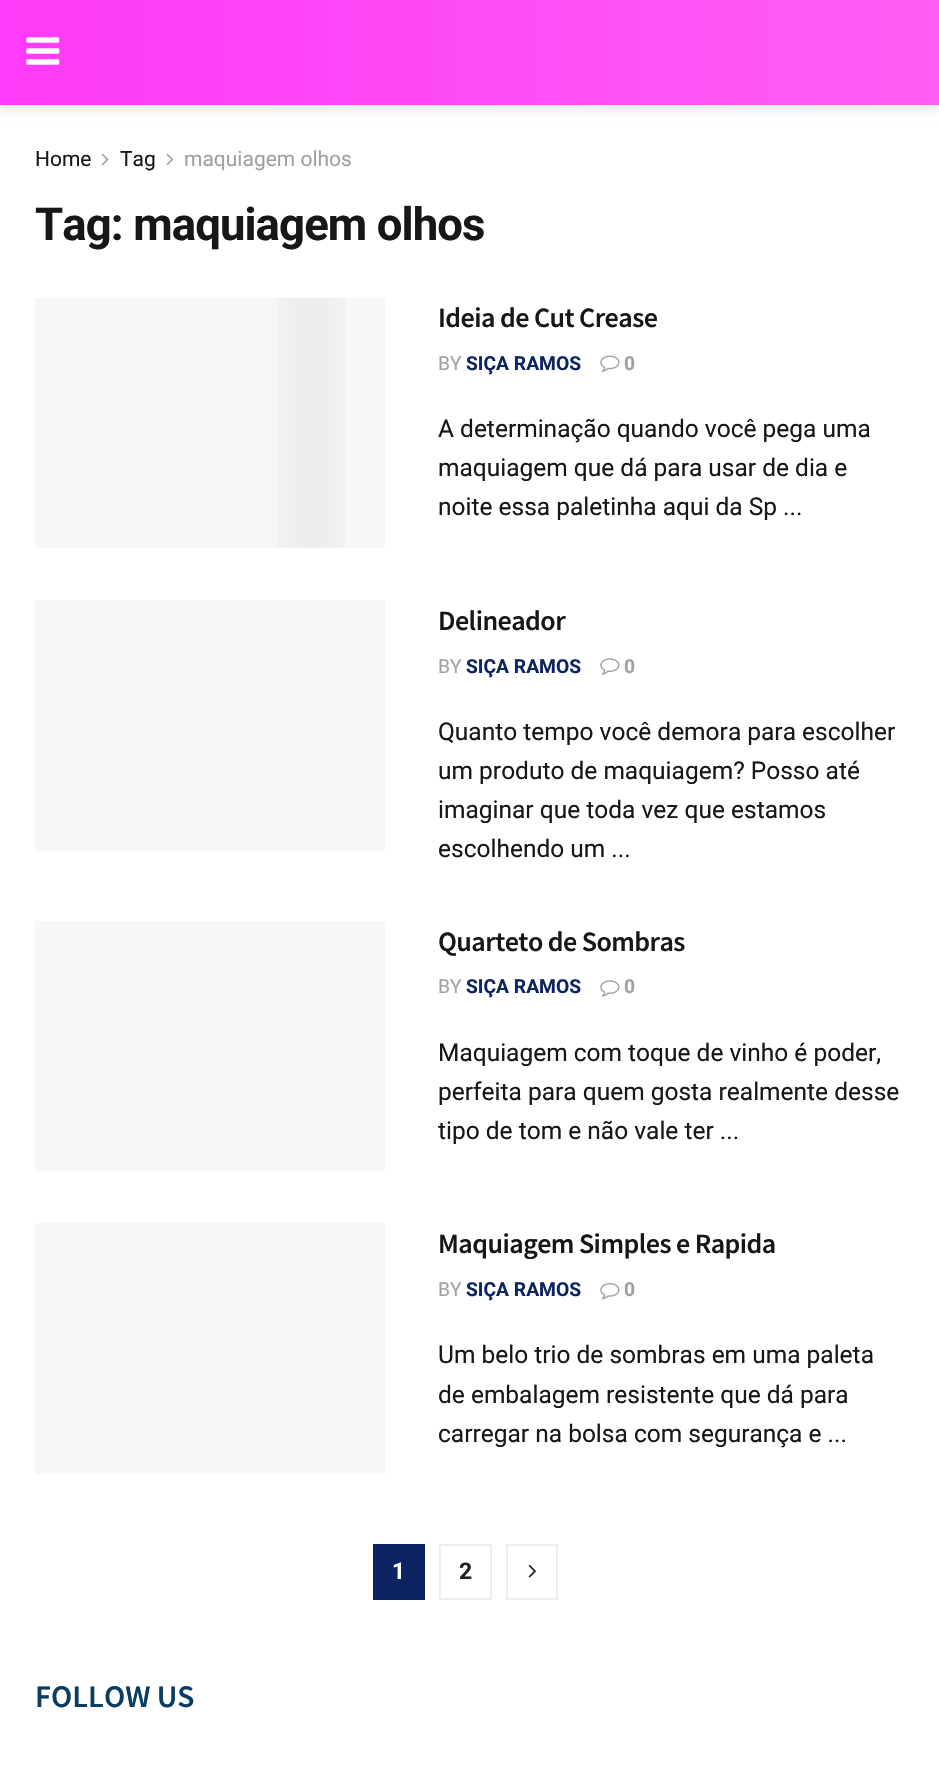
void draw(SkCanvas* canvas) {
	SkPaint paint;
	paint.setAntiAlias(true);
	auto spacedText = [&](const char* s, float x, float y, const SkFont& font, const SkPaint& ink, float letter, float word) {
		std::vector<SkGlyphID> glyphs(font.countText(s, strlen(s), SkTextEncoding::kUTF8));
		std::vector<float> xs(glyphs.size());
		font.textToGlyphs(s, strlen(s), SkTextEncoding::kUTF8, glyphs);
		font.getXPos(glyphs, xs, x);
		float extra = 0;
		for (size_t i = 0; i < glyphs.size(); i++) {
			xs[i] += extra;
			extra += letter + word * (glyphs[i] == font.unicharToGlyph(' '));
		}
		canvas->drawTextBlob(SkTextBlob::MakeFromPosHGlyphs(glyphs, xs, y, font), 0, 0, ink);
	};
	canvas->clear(0xffffffff);
	paint.setColor(0x1a000000);
	paint.setMaskFilter(SkMaskFilter::MakeBlur(kNormal_SkBlurStyle, 5));
	canvas->drawRect(SkRect::MakeXYWH(0, 4, 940, 105), paint);
	paint.setMaskFilter(nullptr);
	{
		const SkColor colors[] = {0xffff3af8, 0xffff5ef4};
		const float stops[] = {0, 1};
		const SkPoint ends[] = {{0, 53}, {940, 52}};
		paint.setShader(SkGradientShader::MakeLinear(ends, colors, stops, 2, SkTileMode::kClamp));
		paint.setAlpha(255);
	}
	canvas->drawRect(SkRect::MakeXYWH(0, 0, 939, 105), paint);
	canvas->drawImageRect(SkImages::DeferredFromEncodedData(SkData::MakeFromFileName("img1.png")), SkRect::MakeXYWH(26, 37, 34, 28), SkSamplingOptions());
	SkFont f1(fontMgr->matchFamilyStyle("Roboto", SkFontStyle::Normal()), 21);
	f1.setSubpixel(true);
	paint.setShader(nullptr);
	paint.setColor(0xff171717);
	canvas->drawString("Home", 35, 166, f1, paint);
	canvas->drawImageRect(SkImages::DeferredFromEncodedData(SkData::MakeFromFileName("img2.png")), SkRect::MakeXYWH(101, 153, 8, 13), SkSamplingOptions());
	canvas->drawString("Tag", 120, 166, f1, paint);
	canvas->drawImageRect(SkImages::DeferredFromEncodedData(SkData::MakeFromFileName("img3.png")), SkRect::MakeXYWH(166, 153, 8, 13), SkSamplingOptions());
	paint.setColor(0xffa0a0a0);
	canvas->drawString("maquiagem olhos", 184, 166, f1, paint);
	SkFont f2(fontMgr->matchFamilyStyle("Roboto", SkFontStyle::Bold()), 45.5);
	f2.setSubpixel(true);
	paint.setColor(0xff171717);
	spacedText("Tag: maquiagem olhos", 35, 240, f2, paint, -0.9, 0);
	paint.setColor(0xfff7f7f7);
	canvas->drawRect(SkRect::MakeXYWH(35, 298, 350, 250), paint);
	canvas->drawImageRect(SkImages::DeferredFromEncodedData(SkData::MakeFromFileName("img4.png")), SkRect::MakeXYWH(277, 297, 69, 251), SkSamplingOptions());
	SkFont f3(fontMgr->matchFamilyStyle("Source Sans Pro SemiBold", SkFontStyle(600, SkFontStyle::kNormal_Width, SkFontStyle::kUpright_Slant)), 28);
	f3.setSubpixel(true);
	paint.setColor(0xff171717);
	spacedText("Ideia de Cut Crease", 438, 327, f3, paint, -0.55, 0);
	SkFont f4(fontMgr->matchFamilyStyle("Roboto", SkFontStyle::Normal()), 19.25);
	f4.setSubpixel(true);
	paint.setColor(0xffa0a0a0);
	canvas->drawString("BY", 438, 370, f4, paint);
	SkFont f5(fontMgr->matchFamilyStyle("Roboto", SkFontStyle::Bold()), 19.25);
	f5.setSubpixel(true);
	paint.setColor(0xff0c2461);
	canvas->drawString("SIÇA RAMOS", 466, 370, f5, paint);
	canvas->drawImageRect(SkImages::DeferredFromEncodedData(SkData::MakeFromFileName("img5.png")), SkRect::MakeXYWH(600, 355, 20, 17), SkSamplingOptions());
	paint.setColor(0xffa0a0a0);
	canvas->drawString("0", 624, 370, f5, paint);
	SkFont f6(fontMgr->matchFamilyStyle("Roboto", SkFontStyle::Normal()), 24.5);
	f6.setSubpixel(true);
	paint.setColor(0xff171717);
	canvas->drawString("A determinação quando você pega uma", 438, 437, f6, paint);
	canvas->drawString("maquiagem que dá para usar de dia e", 438, 476, f6, paint);
	canvas->drawString("noite essa paletinha aqui da Sp ...", 438, 515, f6, paint);
	paint.setColor(0xfff7f7f7);
	canvas->drawRect(SkRect::MakeXYWH(35, 600, 350, 251), paint);
	paint.setColor(0xff171717);
	spacedText("Delineador", 438, 630, f3, paint, -0.55, 0);
	paint.setColor(0xffa0a0a0);
	canvas->drawString("BY", 438, 673, f4, paint);
	paint.setColor(0xff0c2461);
	canvas->drawString("SIÇA RAMOS", 466, 673, f5, paint);
	canvas->drawImageRect(SkImages::DeferredFromEncodedData(SkData::MakeFromFileName("img6.png")), SkRect::MakeXYWH(600, 658, 20, 17), SkSamplingOptions());
	paint.setColor(0xffa0a0a0);
	canvas->drawString("0", 624, 673, f5, paint);
	paint.setColor(0xff171717);
	canvas->drawString("Quanto tempo você demora para escolher", 438, 740, f6, paint);
	canvas->drawString("um produto de maquiagem? Posso até", 438, 779, f6, paint);
	canvas->drawString("imaginar que toda vez que estamos", 438, 818, f6, paint);
	canvas->drawString("escolhendo um ...", 438, 857, f6, paint);
	paint.setColor(0xfff7f7f7);
	canvas->drawRect(SkRect::MakeXYWH(35, 921, 350, 250), paint);
	paint.setColor(0xff171717);
	spacedText("Quarteto de Sombras", 438, 951, f3, paint, -0.55, 0);
	paint.setColor(0xffa0a0a0);
	canvas->drawString("BY", 438, 993, f4, paint);
	paint.setColor(0xff0c2461);
	canvas->drawString("SIÇA RAMOS", 466, 993, f5, paint);
	canvas->drawImageRect(SkImages::DeferredFromEncodedData(SkData::MakeFromFileName("img7.png")), SkRect::MakeXYWH(600, 980, 20, 17), SkSamplingOptions());
	paint.setColor(0xffa0a0a0);
	canvas->drawString("0", 624, 993, f5, paint);
	paint.setColor(0xff171717);
	canvas->drawString("Maquiagem com toque de vinho é poder,", 438, 1061, f6, paint);
	canvas->drawString("perfeita para quem gosta realmente desse", 438, 1100, f6, paint);
	canvas->drawString("tipo de tom e não vale ter ...", 438, 1139, f6, paint);
	paint.setColor(0xfff7f7f7);
	canvas->drawRect(SkRect::MakeXYWH(35, 1223, 350, 251), paint);
	paint.setColor(0xff171717);
	spacedText("Maquiagem Simples e Rapida", 438, 1253, f3, paint, -0.55, 0);
	paint.setColor(0xffa0a0a0);
	canvas->drawString("BY", 438, 1296, f4, paint);
	paint.setColor(0xff0c2461);
	canvas->drawString("SIÇA RAMOS", 466, 1296, f5, paint);
	canvas->drawImageRect(SkImages::DeferredFromEncodedData(SkData::MakeFromFileName("img8.png")), SkRect::MakeXYWH(600, 1283, 20, 17), SkSamplingOptions());
	paint.setColor(0xffa0a0a0);
	canvas->drawString("0", 624, 1296, f5, paint);
	paint.setColor(0xff171717);
	canvas->drawString("Um belo trio de sombras em uma paleta", 438, 1363, f6, paint);
	canvas->drawString("de embalagem resistente que dá para", 438, 1403, f6, paint);
	canvas->drawString("carregar na bolsa com segurança e ...", 438, 1442, f6, paint);
	paint.setColor(0xff0c2461);
	canvas->drawRect(SkRect::MakeXYWH(373, 1544, 52, 56), paint);
	SkFont f7(fontMgr->matchFamilyStyle("Roboto", SkFontStyle::Bold()), 23);
	f7.setSubpixel(true);
	paint.setColor(0xffffffff);
	canvas->drawString("1", 392, 1579, f7, paint);
	paint.setStroke(true);
	paint.setStrokeWidth(2);
	paint.setColor(0xffeeeeee);
	canvas->drawRect(SkRect::MakeXYWH(440, 1545, 51, 54), paint);
	paint.setStroke(false);
	paint.setColor(0xff212121);
	canvas->drawString("2", 459, 1579, f7, paint);
	paint.setStroke(true);
	paint.setColor(0xffeeeeee);
	canvas->drawRect(SkRect::MakeXYWH(507, 1545, 50, 54), paint);
	canvas->drawImageRect(SkImages::DeferredFromEncodedData(SkData::MakeFromFileName("img9.png")), SkRect::MakeXYWH(528, 1564, 8, 14), SkSamplingOptions());
	SkFont f8(fontMgr->matchFamilyStyle("Source Sans Pro SemiBold", SkFontStyle(600, SkFontStyle::kNormal_Width, SkFontStyle::kUpright_Slant)), 31.5);
	f8.setSubpixel(true);
	paint.setStroke(false);
	paint.setColor(0xff0a3d61);
	canvas->drawString("FOLLOW US", 35, 1707, f8, paint);
}
